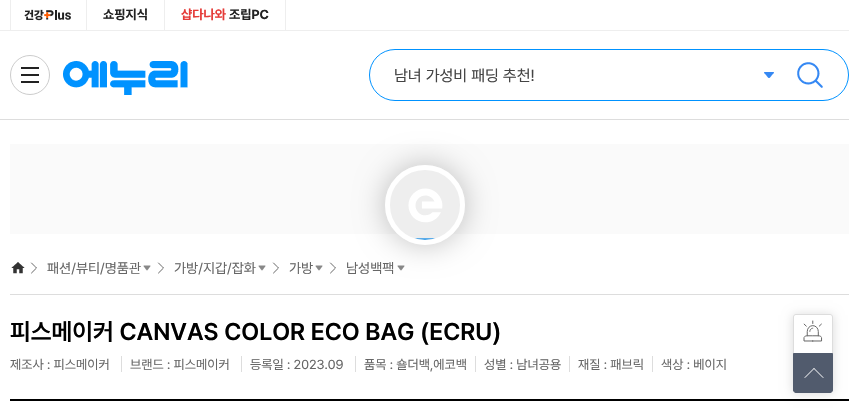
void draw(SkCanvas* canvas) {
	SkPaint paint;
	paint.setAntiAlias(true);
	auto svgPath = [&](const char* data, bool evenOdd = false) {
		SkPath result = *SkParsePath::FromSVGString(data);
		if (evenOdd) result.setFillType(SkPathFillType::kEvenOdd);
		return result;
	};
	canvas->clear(0xffffffff);
	paint.setColor(0xffdddddd);
	canvas->drawRect(SkRect::MakeXYWH(0, 119, 849, 1), paint);
	paint.setColor(0xffeeeeee);
	canvas->drawRect(SkRect::MakeXYWH(0, 30, 849, 1), paint);
	canvas->drawRect(SkRect::MakeXYWH(10, 0, 1, 30), paint);
	canvas->drawRect(SkRect::MakeXYWH(86, 0, 1, 30), paint);
	canvas->drawImageRect(SkImages::DeferredFromEncodedData(SkData::MakeFromFileName("img1.png")), SkRect::MakeXYWH(24, 9, 47, 12), SkSamplingOptions());
	canvas->drawRect(SkRect::MakeXYWH(164, 0, 1, 30), paint);
	SkFont f1(fontMgr->matchFamilyStyle("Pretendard", SkFontStyle::Bold()), 13);
	f1.setSubpixel(true);
	paint.setColor(0xff222222);
	canvas->drawString("쇼핑지식", 103, 19, f1, paint);
	paint.setColor(0xffeeeeee);
	canvas->drawRect(SkRect::MakeXYWH(285, 0, 1, 30), paint);
	paint.setColor(0xffe53b38);
	canvas->drawString("샵다나와", 181, 19, f1, paint);
	paint.setColor(0xff222222);
	canvas->drawString("조립PC", 229, 19, f1, paint);
	paint.setStroke(true);
	paint.setStrokeWidth(1);
	paint.setColor(0xffcccccc);
	canvas->drawCircle(30, 75, 19.5, paint);
	paint.setStroke(false);
	paint.setColor(0xff222222);
	canvas->drawRect(SkRect::MakeXYWH(21, 67, 18, 2), paint);
	canvas->drawRect(SkRect::MakeXYWH(21, 74, 18, 2), paint);
	canvas->drawRect(SkRect::MakeXYWH(21, 81, 18, 2), paint);
	canvas->drawImageRect(SkImages::DeferredFromEncodedData(SkData::MakeFromFileName("img2.png")), SkRect::MakeXYWH(63, 61, 125, 34), SkSamplingOptions());
	paint.setStroke(true);
	paint.setColor(0xff0092ff);
	canvas->drawRoundRect(SkRect::MakeXYWH(369.5, 49.5, 479, 51), 25.5, 25.5, paint);
	SkFont f2(fontMgr->matchFamilyStyle("Pretendard", SkFontStyle::Normal()), 16);
	f2.setSubpixel(true);
	paint.setStroke(false);
	paint.setColor(0xff444444);
	canvas->drawString("남녀 가성비 패딩 추천!", 394, 81, f2, paint);
	canvas->drawImageRect(SkImages::DeferredFromEncodedData(SkData::MakeFromFileName("img3.png")), SkRect::MakeXYWH(764, 72, 10, 6), SkSamplingOptions());
	canvas->drawImageRect(SkImages::DeferredFromEncodedData(SkData::MakeFromFileName("img4.png")), SkRect::MakeXYWH(797, 62, 26, 26), SkSamplingOptions());
	paint.setColor(0xfffafafa);
	canvas->drawRect(SkRect::MakeXYWH(10, 144, 839, 90), paint);
	paint.setColor(0xffdddddd);
	canvas->drawRect(SkRect::MakeXYWH(10, 294, 839, 1), paint);
	canvas->drawImageRect(SkImages::DeferredFromEncodedData(SkData::MakeFromFileName("img5.png")), SkRect::MakeXYWH(11, 262, 14, 12), SkSamplingOptions());
	canvas->drawImageRect(SkImages::DeferredFromEncodedData(SkData::MakeFromFileName("img6.png")), SkRect::MakeXYWH(30, 262, 7, 12), SkSamplingOptions());
	SkFont f3(fontMgr->matchFamilyStyle("Pretendard", SkFontStyle::Normal()), 14);
	f3.setSubpixel(true);
	paint.setColor(0xff666666);
	canvas->drawString("패션/뷰티/명품관", 47, 273, f3, paint);
	canvas->drawImageRect(SkImages::DeferredFromEncodedData(SkData::MakeFromFileName("img7.png")), SkRect::MakeXYWH(143, 265, 8, 6), SkSamplingOptions());
	canvas->drawImageRect(SkImages::DeferredFromEncodedData(SkData::MakeFromFileName("img6.png")), SkRect::MakeXYWH(157, 262, 7, 12), SkSamplingOptions());
	canvas->drawString("가방/지갑/잡화", 174, 273, f3, paint);
	canvas->drawImageRect(SkImages::DeferredFromEncodedData(SkData::MakeFromFileName("img7.png")), SkRect::MakeXYWH(258, 265, 8, 6), SkSamplingOptions());
	canvas->drawImageRect(SkImages::DeferredFromEncodedData(SkData::MakeFromFileName("img6.png")), SkRect::MakeXYWH(272, 262, 7, 12), SkSamplingOptions());
	canvas->drawString("가방", 289, 273, f3, paint);
	canvas->drawImageRect(SkImages::DeferredFromEncodedData(SkData::MakeFromFileName("img7.png")), SkRect::MakeXYWH(315, 265, 8, 6), SkSamplingOptions());
	canvas->drawImageRect(SkImages::DeferredFromEncodedData(SkData::MakeFromFileName("img6.png")), SkRect::MakeXYWH(329, 262, 7, 12), SkSamplingOptions());
	canvas->drawString("남성백팩", 346, 273, f3, paint);
	canvas->drawImageRect(SkImages::DeferredFromEncodedData(SkData::MakeFromFileName("img7.png")), SkRect::MakeXYWH(397, 265, 8, 6), SkSamplingOptions());
	paint.setColor(0xff000000);
	canvas->drawRect(SkRect::MakeXYWH(10, 399, 839, 2), paint);
	SkFont f4(fontMgr->matchFamilyStyle("Pretendard", SkFontStyle(600, SkFontStyle::kNormal_Width, SkFontStyle::kUpright_Slant)), 24);
	f4.setSubpixel(true);
	canvas->drawString("피스메이커 CANVAS COLOR ECO BAG (ECRU)", 10, 340, f4, paint);
	SkFont f5(fontMgr->matchFamilyStyle("Pretendard", SkFontStyle::Normal()), 13);
	f5.setSubpixel(true);
	paint.setColor(0xff666666);
	canvas->drawString("제조사 : 피스메이커", 10, 369, f5, paint);
	paint.setColor(0xffdddddd);
	canvas->drawRect(SkRect::MakeXYWH(121, 356, 1, 16), paint);
	paint.setColor(0xff666666);
	canvas->drawString("브랜드 : 피스메이커", 130, 369, f5, paint);
	paint.setColor(0xffdddddd);
	canvas->drawRect(SkRect::MakeXYWH(241, 356, 1, 16), paint);
	paint.setColor(0xff666666);
	canvas->drawString("등록일 : 2023.09", 250, 369, f5, paint);
	paint.setColor(0xffdddddd);
	canvas->drawRect(SkRect::MakeXYWH(355, 356, 1, 16), paint);
	paint.setColor(0xff666666);
	canvas->drawString("품목 : 숄더백,에코백", 364, 369, f5, paint);
	paint.setColor(0xffdddddd);
	canvas->drawRect(SkRect::MakeXYWH(475, 356, 1, 16), paint);
	paint.setColor(0xff666666);
	canvas->drawString("성별 : 남녀공용", 484, 369, f5, paint);
	paint.setColor(0xffdddddd);
	canvas->drawRect(SkRect::MakeXYWH(569, 356, 1, 16), paint);
	paint.setColor(0xff666666);
	canvas->drawString("재질 : 패브릭", 578, 369, f5, paint);
	paint.setColor(0xffdddddd);
	canvas->drawRect(SkRect::MakeXYWH(652, 356, 1, 16), paint);
	paint.setColor(0xff666666);
	canvas->drawString("색상 : 베이지", 661, 369, f5, paint);
	paint.setColor(0x26000000);
	paint.setMaskFilter(SkMaskFilter::MakeBlur(kNormal_SkBlurStyle, 5));
	canvas->drawRect(SkRect::MakeXYWH(793, 315, 40, 78), paint);
	paint.setMaskFilter(nullptr);
	paint.setColor(0xffffffff);
	canvas->drawPath(svgPath("M796 314.5H830C831.5 314.5 832.5 315.5 832.5 317V353.5H793.5V317C793.5 315.5 794.5 314.5 796 314.5Z"), paint);
	paint.setStroke(true);
	paint.setColor(0xffdddddd);
	canvas->drawPath(svgPath("M796 314.5H830C831.5 314.5 832.5 315.5 832.5 317V353.5H793.5V317C793.5 315.5 794.5 314.5 796 314.5Z"), paint);
	canvas->drawImageRect(SkImages::DeferredFromEncodedData(SkData::MakeFromFileName("img8.png")), SkRect::MakeXYWH(803, 320, 20, 22), SkSamplingOptions());
	paint.setStroke(false);
	paint.setColor(0xff515b6d);
	canvas->drawPath(svgPath("M793.5 353.5H832.5V390C832.5 391.5 831.5 392.5 830 392.5H796C794.5 392.5 793.5 391.5 793.5 390Z"), paint);
	paint.setStroke(true);
	canvas->drawPath(svgPath("M793.5 353.5H832.5V390C832.5 391.5 831.5 392.5 830 392.5H796C794.5 392.5 793.5 391.5 793.5 390Z"), paint);
	canvas->drawImageRect(SkImages::DeferredFromEncodedData(SkData::MakeFromFileName("img9.png")), SkRect::MakeXYWH(804, 368, 20, 10), SkSamplingOptions());
	paint.setStroke(false);
	paint.setColor(0x40000000);
	paint.setMaskFilter(SkMaskFilter::MakeBlur(kNormal_SkBlurStyle, 15));
	canvas->drawRoundRect(SkRect::MakeXYWH(385, 165, 80, 80), 40, 40, paint);
	paint.setMaskFilter(nullptr);
	paint.setColor(0xffeeeeee);
	canvas->drawCircle(425, 205, 40, paint);
	canvas->drawImageRect(SkImages::DeferredFromEncodedData(SkData::MakeFromFileName("img10.png")), SkRect::MakeXYWH(408, 188, 35, 52), SkSamplingOptions());
	paint.setStroke(true);
	paint.setStrokeWidth(5);
	paint.setColor(0xffffffff);
	canvas->drawCircle(425, 205, 37.5, paint);
}
